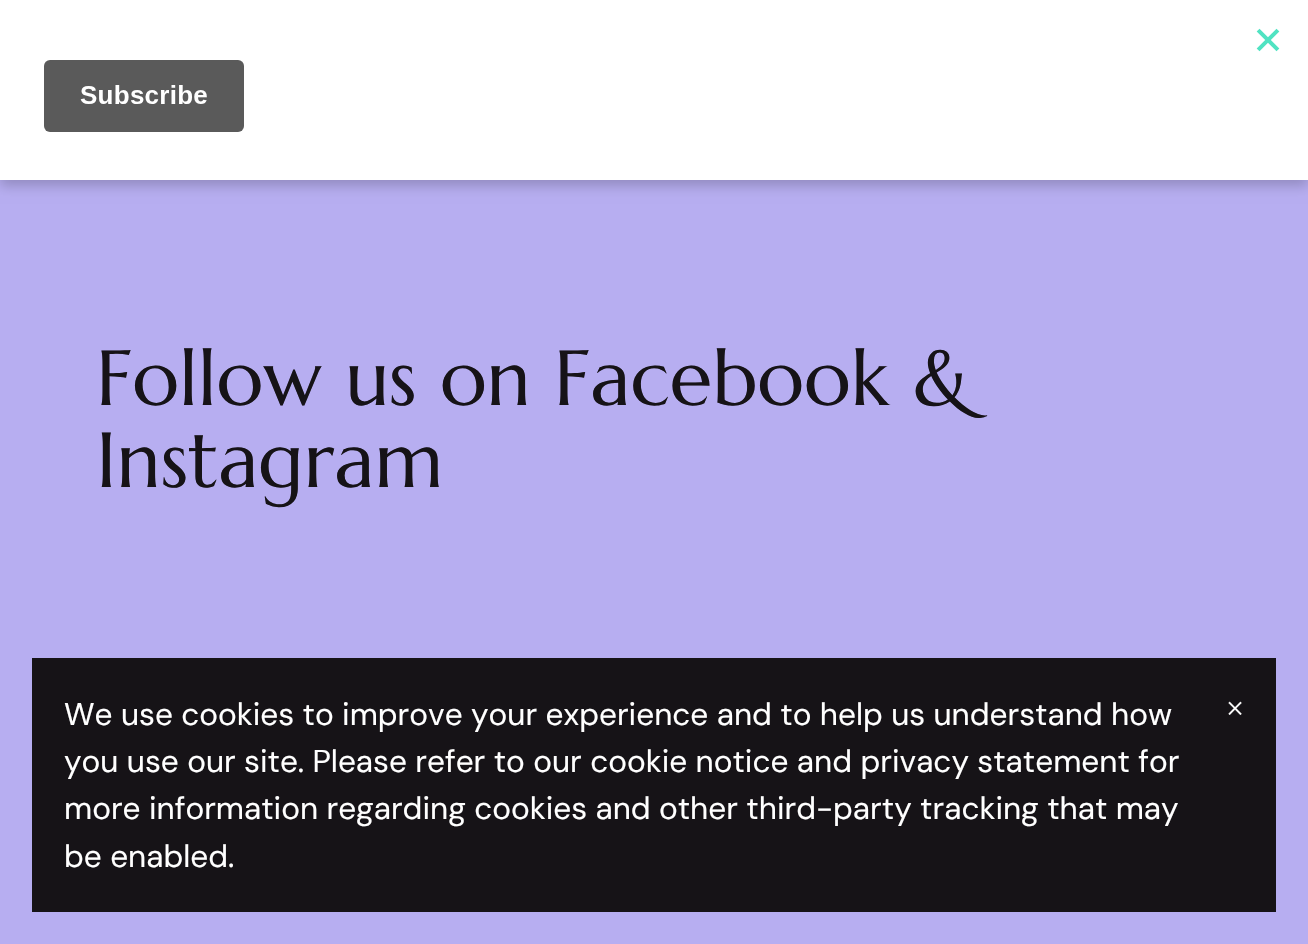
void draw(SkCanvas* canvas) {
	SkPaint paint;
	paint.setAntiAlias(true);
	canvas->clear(0xffb7aef1);
	paint.setColor(0x33000000);
	paint.setMaskFilter(SkMaskFilter::MakeBlur(kNormal_SkBlurStyle, 6));
	canvas->drawRect(SkRect::MakeXYWH(0, 6, 1308, 180), paint);
	paint.setMaskFilter(nullptr);
	paint.setColor(0xffffffff);
	canvas->drawRect(SkRect::MakeXYWH(0, 0, 1308, 180), paint);
	canvas->drawImageRect(SkImages::DeferredFromEncodedData(SkData::MakeFromFileName("img1.png")), SkRect::MakeXYWH(44, 28, 1236, 104), SkSamplingOptions());
	SkFont f1(fontMgr->matchFamilyStyle("Marcellus", SkFontStyle::Normal()), 77.75);
	f1.setSubpixel(true);
	paint.setColor(0xff161317);
	canvas->drawString("Follow us on Facebook &", 96, 405, f1, paint);
	canvas->drawString("Instagram", 96, 487, f1, paint);
	canvas->drawRect(SkRect::MakeXYWH(32, 658, 1244, 254), paint);
	SkFont f2(fontMgr->matchFamilyStyle("DM Sans", SkFontStyle::Normal()), 31.6);
	f2.setSubpixel(true);
	paint.setColor(0xffffffff);
	canvas->drawString("We use cookies to improve your experience and to help us understand how", 64, 725, f2, paint);
	canvas->drawString("you use our site. Please refer to our cookie notice and privacy statement for", 64, 772, f2, paint);
	canvas->drawString("more information regarding cookies and other third-party tracking that may", 64, 819, f2, paint);
	canvas->drawString("be enabled.", 64, 867, f2, paint);
	SkFont f3(fontMgr->matchFamilyStyle("Liberation Serif", SkFontStyle::Normal()), 32);
	f3.setSubpixel(true);
	canvas->drawString("×", 1226, 719, f3, paint);
}
